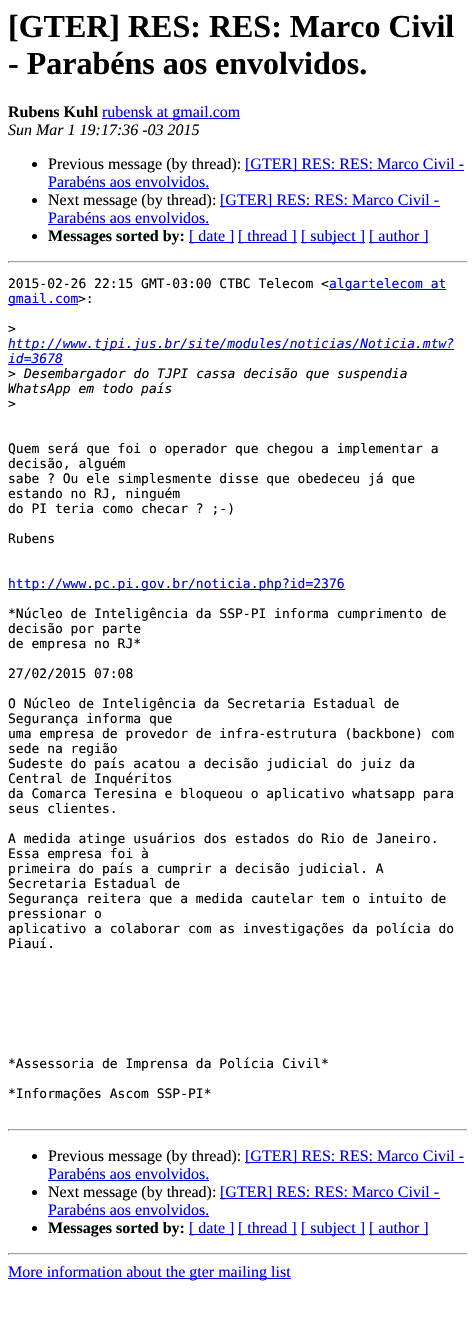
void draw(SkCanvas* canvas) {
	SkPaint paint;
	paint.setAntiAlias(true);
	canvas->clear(0xffffffff);
	SkFont f1(fontMgr->matchFamilyStyle("Liberation Serif", SkFontStyle::Bold()), 32);
	f1.setSubpixel(true);
	paint.setColor(0xff000000);
	canvas->drawString("[GTER] RES: RES: Marco Civil", 8, 37, f1, paint);
	canvas->drawString("- Parabéns aos envolvidos.", 8, 74, f1, paint);
	SkFont f2(fontMgr->matchFamilyStyle("Liberation Serif", SkFontStyle::Bold()), 16);
	f2.setSubpixel(true);
	canvas->drawString("Rubens Kuhl", 8, 117, f2, paint);
	paint.setColor(0xff0000ee);
	canvas->drawRect(SkRect::MakeXYWH(102, 118, 138, 1), paint);
	SkFont f3(fontMgr->matchFamilyStyle("Liberation Serif", SkFontStyle::Normal()), 16);
	f3.setSubpixel(true);
	canvas->drawString("rubensk at gmail.com", 102, 117, f3, paint);
	SkFont f4(fontMgr->matchFamilyStyle("Liberation Serif", SkFontStyle::Italic()), 16);
	f4.setSubpixel(true);
	paint.setColor(0xff000000);
	canvas->drawString("Sun Mar 1 19:17:36 -03 2015", 8, 135, f4, paint);
	canvas->drawCircle(34.5, 164.5, 2.5, paint);
	canvas->drawString("Previous message (by thread):", 48, 169, f3, paint);
	paint.setColor(0xff0000ee);
	canvas->drawRect(SkRect::MakeXYWH(245, 170, 219, 1), paint);
	canvas->drawString("[GTER] RES: RES: Marco Civil -", 245, 169, f3, paint);
	canvas->drawString("Parabéns aos envolvidos.", 48, 187, f3, paint);
	canvas->drawRect(SkRect::MakeXYWH(48, 188, 161, 1), paint);
	paint.setColor(0xff000000);
	canvas->drawCircle(34.5, 200.5, 2.5, paint);
	canvas->drawString("Next message (by thread):", 48, 205, f3, paint);
	paint.setColor(0xff0000ee);
	canvas->drawRect(SkRect::MakeXYWH(220, 206, 220, 1), paint);
	canvas->drawString("[GTER] RES: RES: Marco Civil -", 220, 205, f3, paint);
	canvas->drawString("Parabéns aos envolvidos.", 48, 223, f3, paint);
	canvas->drawRect(SkRect::MakeXYWH(48, 224, 161, 1), paint);
	paint.setColor(0xff000000);
	canvas->drawCircle(34.5, 236.5, 2.5, paint);
	canvas->drawString("Messages sorted by:", 48, 241, f2, paint);
	paint.setColor(0xff0000ee);
	canvas->drawRect(SkRect::MakeXYWH(189, 242, 45, 1), paint);
	canvas->drawString("[ date ]", 189, 241, f3, paint);
	canvas->drawRect(SkRect::MakeXYWH(238, 242, 59, 1), paint);
	canvas->drawString("[ thread ]", 238, 241, f3, paint);
	canvas->drawRect(SkRect::MakeXYWH(301, 242, 64, 1), paint);
	canvas->drawString("[ subject ]", 301, 241, f3, paint);
	canvas->drawRect(SkRect::MakeXYWH(369, 242, 59, 1), paint);
	canvas->drawString("[ author ]", 369, 241, f3, paint);
	paint.setColor(0xff9f9f9f);
	canvas->drawRect(SkRect::MakeXYWH(8, 261, 460, 1), paint);
	paint.setColor(0xffeeeeee);
	canvas->drawRect(SkRect::MakeXYWH(467, 261, 1, 2), paint);
	canvas->drawRect(SkRect::MakeXYWH(8, 262, 460, 1), paint);
	paint.setColor(0xff9f9f9f);
	canvas->drawRect(SkRect::MakeXYWH(8, 261, 1, 2), paint);
	SkFont f5(fontMgr->matchFamilyStyle("DejaVu Sans Mono", SkFontStyle::Normal()), 13);
	f5.setSubpixel(true);
	paint.setColor(0xff000000);
	canvas->drawString("2015-02-26 22:15 GMT-03:00 CTBC Telecom <", 8, 288, f5, paint);
	paint.setColor(0xff0000ee);
	canvas->drawRect(SkRect::MakeXYWH(329, 289, 117, 1), paint);
	canvas->drawString("algartelecom at", 329, 288, f5, paint);
	canvas->drawRect(SkRect::MakeXYWH(8, 304, 70, 1), paint);
	canvas->drawString("gmail.com", 8, 303, f5, paint);
	paint.setColor(0xff000000);
	canvas->drawString(">:", 78, 303, f5, paint);
	canvas->drawString(">", 8, 333, f5, paint);
	paint.setColor(0xff0000ee);
	canvas->drawRect(SkRect::MakeXYWH(8, 349, 446, 1), paint);
	SkFont f6(fontMgr->matchFamilyStyle("DejaVu Sans Mono", SkFontStyle::Italic()), 13);
	f6.setSubpixel(true);
	canvas->drawString("http://www.tjpi.jus.br/site/modules/noticias/Noticia.mtw?", 8, 348, f6, paint);
	canvas->drawString("id=3678", 8, 363, f6, paint);
	canvas->drawRect(SkRect::MakeXYWH(8, 364, 55, 1), paint);
	paint.setColor(0xff000000);
	canvas->drawString(">", 8, 378, f5, paint);
	canvas->drawString("Desembargador do TJPI cassa decisão que suspendia", 24, 378, f6, paint);
	canvas->drawString("WhatsApp em todo país", 8, 393, f6, paint);
	canvas->drawString(">", 8, 408, f5, paint);
	canvas->drawString("Quem será que foi o operador que chegou a implementar a", 8, 453, f5, paint);
	canvas->drawString("decisão, alguém", 8, 468, f5, paint);
	canvas->drawString("sabe ? Ou ele simplesmente disse que obedeceu já que", 8, 483, f5, paint);
	canvas->drawString("estando no RJ, ninguém", 8, 498, f5, paint);
	canvas->drawString("do PI teria como checar ? ;-)", 8, 513, f5, paint);
	canvas->drawString("Rubens", 8, 543, f5, paint);
	paint.setColor(0xff0000ee);
	canvas->drawRect(SkRect::MakeXYWH(8, 589, 337, 1), paint);
	canvas->drawString("http://www.pc.pi.gov.br/noticia.php?id=2376", 8, 588, f5, paint);
	paint.setColor(0xff000000);
	canvas->drawString("*Núcleo de Inteligência da SSP-PI informa cumprimento de", 8, 618, f5, paint);
	canvas->drawString("decisão por parte", 8, 633, f5, paint);
	canvas->drawString("de empresa no RJ*", 8, 648, f5, paint);
	canvas->drawString("27/02/2015 07:08", 8, 678, f5, paint);
	canvas->drawString("O Núcleo de Inteligência da Secretaria Estadual de", 8, 708, f5, paint);
	canvas->drawString("Segurança informa que", 8, 723, f5, paint);
	canvas->drawString("uma empresa de provedor de infra-estrutura (backbone) com", 8, 738, f5, paint);
	canvas->drawString("sede na região", 8, 753, f5, paint);
	canvas->drawString("Sudeste do país acatou a decisão judicial do juiz da", 8, 768, f5, paint);
	canvas->drawString("Central de Inquéritos", 8, 783, f5, paint);
	canvas->drawString("da Comarca Teresina e bloqueou o aplicativo whatsapp para", 8, 798, f5, paint);
	canvas->drawString("seus clientes.", 8, 813, f5, paint);
	canvas->drawString("A medida atinge usuários dos estados do Rio de Janeiro.", 8, 843, f5, paint);
	canvas->drawString("Essa empresa foi à", 8, 858, f5, paint);
	canvas->drawString("primeira do país a cumprir a decisão judicial. A", 8, 873, f5, paint);
	canvas->drawString("Secretaria Estadual de", 8, 888, f5, paint);
	canvas->drawString("Segurança reitera que a medida cautelar tem o intuito de", 8, 903, f5, paint);
	canvas->drawString("pressionar o", 8, 918, f5, paint);
	canvas->drawString("aplicativo a colaborar com as investigações da polícia do", 8, 933, f5, paint);
	canvas->drawString("Piauí.", 8, 948, f5, paint);
	canvas->drawString("*Assessoria de Imprensa da Polícia Civil*", 8, 1068, f5, paint);
	canvas->drawString("*Informações Ascom SSP-PI*", 8, 1098, f5, paint);
	paint.setColor(0xff9f9f9f);
	canvas->drawRect(SkRect::MakeXYWH(8, 1129, 460, 1), paint);
	paint.setColor(0xffeeeeee);
	canvas->drawRect(SkRect::MakeXYWH(467, 1129, 1, 2), paint);
	canvas->drawRect(SkRect::MakeXYWH(8, 1130, 460, 1), paint);
	paint.setColor(0xff9f9f9f);
	canvas->drawRect(SkRect::MakeXYWH(8, 1129, 1, 2), paint);
	paint.setColor(0xff000000);
	canvas->drawCircle(34.5, 1156.5, 2.5, paint);
	canvas->drawString("Previous message (by thread):", 48, 1161, f3, paint);
	paint.setColor(0xff0000ee);
	canvas->drawRect(SkRect::MakeXYWH(245, 1162, 219, 1), paint);
	canvas->drawString("[GTER] RES: RES: Marco Civil -", 245, 1161, f3, paint);
	canvas->drawString("Parabéns aos envolvidos.", 48, 1179, f3, paint);
	canvas->drawRect(SkRect::MakeXYWH(48, 1180, 161, 1), paint);
	paint.setColor(0xff000000);
	canvas->drawCircle(34.5, 1192.5, 2.5, paint);
	canvas->drawString("Next message (by thread):", 48, 1197, f3, paint);
	paint.setColor(0xff0000ee);
	canvas->drawRect(SkRect::MakeXYWH(220, 1198, 220, 1), paint);
	canvas->drawString("[GTER] RES: RES: Marco Civil -", 220, 1197, f3, paint);
	canvas->drawString("Parabéns aos envolvidos.", 48, 1215, f3, paint);
	canvas->drawRect(SkRect::MakeXYWH(48, 1216, 161, 1), paint);
	paint.setColor(0xff000000);
	canvas->drawCircle(34.5, 1228.5, 2.5, paint);
	canvas->drawString("Messages sorted by:", 48, 1233, f2, paint);
	paint.setColor(0xff0000ee);
	canvas->drawRect(SkRect::MakeXYWH(189, 1234, 45, 1), paint);
	canvas->drawString("[ date ]", 189, 1233, f3, paint);
	canvas->drawRect(SkRect::MakeXYWH(238, 1234, 59, 1), paint);
	canvas->drawString("[ thread ]", 238, 1233, f3, paint);
	canvas->drawRect(SkRect::MakeXYWH(301, 1234, 64, 1), paint);
	canvas->drawString("[ subject ]", 301, 1233, f3, paint);
	canvas->drawRect(SkRect::MakeXYWH(369, 1234, 59, 1), paint);
	canvas->drawString("[ author ]", 369, 1233, f3, paint);
	paint.setColor(0xff9f9f9f);
	canvas->drawRect(SkRect::MakeXYWH(8, 1253, 460, 1), paint);
	paint.setColor(0xffeeeeee);
	canvas->drawRect(SkRect::MakeXYWH(467, 1253, 1, 2), paint);
	canvas->drawRect(SkRect::MakeXYWH(8, 1254, 460, 1), paint);
	paint.setColor(0xff9f9f9f);
	canvas->drawRect(SkRect::MakeXYWH(8, 1253, 1, 2), paint);
	paint.setColor(0xff0000ee);
	canvas->drawRect(SkRect::MakeXYWH(8, 1278, 283, 1), paint);
	canvas->drawString("More information about the gter mailing list", 8, 1277, f3, paint);
}
